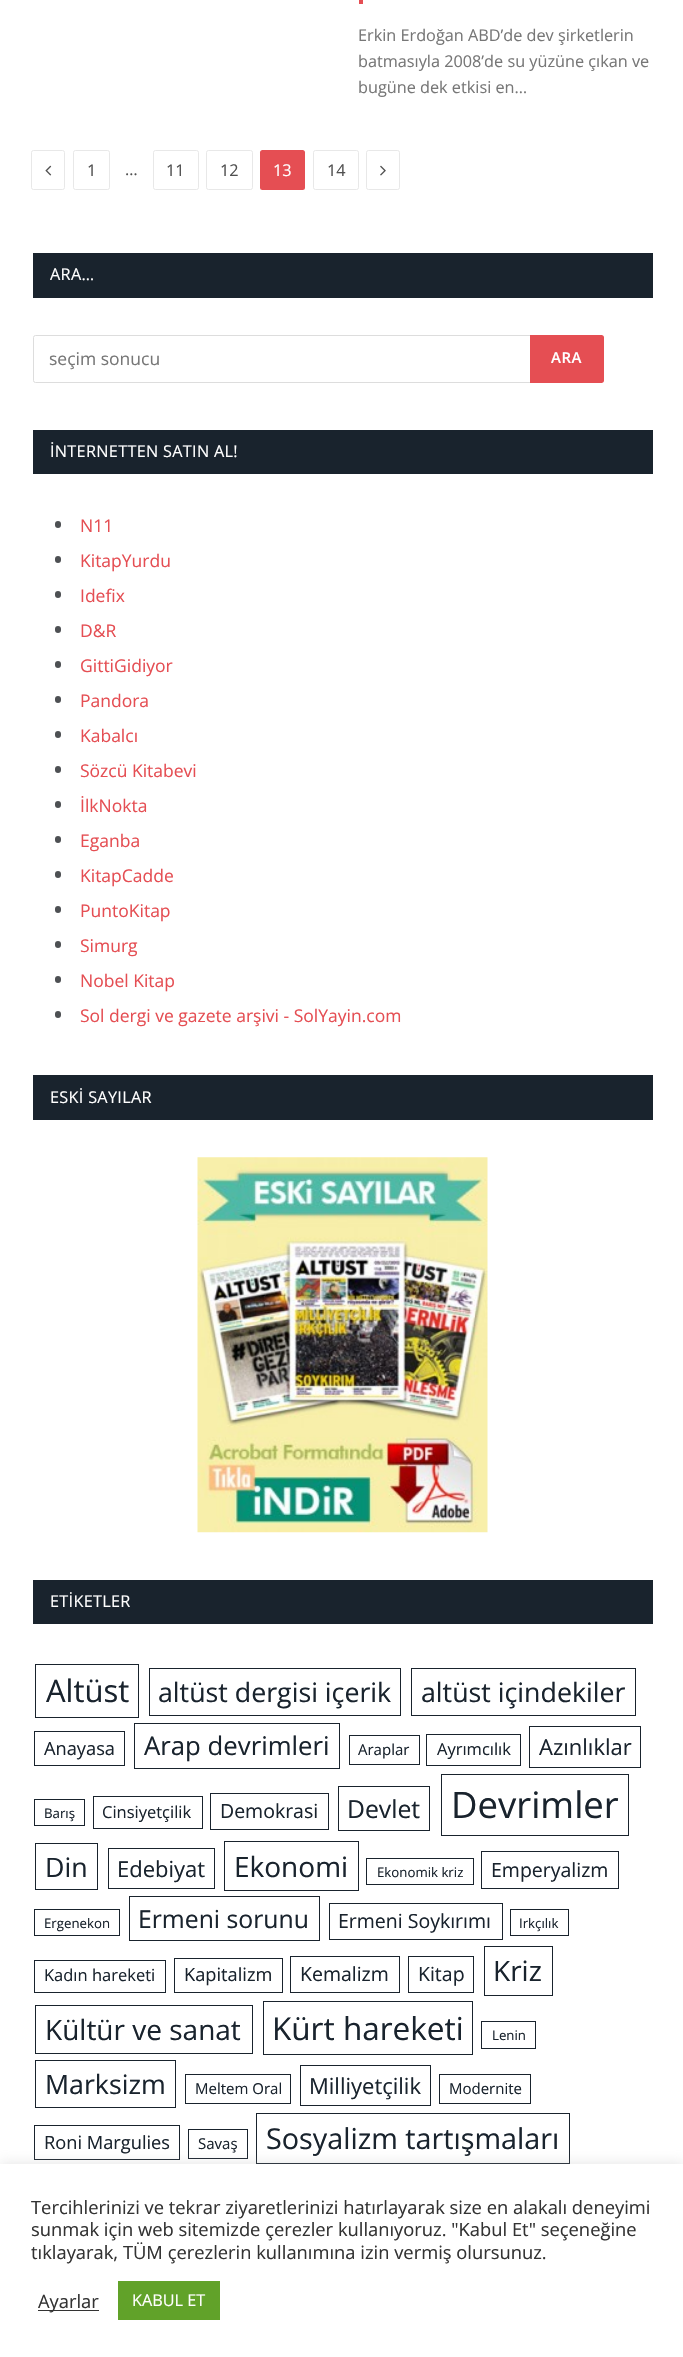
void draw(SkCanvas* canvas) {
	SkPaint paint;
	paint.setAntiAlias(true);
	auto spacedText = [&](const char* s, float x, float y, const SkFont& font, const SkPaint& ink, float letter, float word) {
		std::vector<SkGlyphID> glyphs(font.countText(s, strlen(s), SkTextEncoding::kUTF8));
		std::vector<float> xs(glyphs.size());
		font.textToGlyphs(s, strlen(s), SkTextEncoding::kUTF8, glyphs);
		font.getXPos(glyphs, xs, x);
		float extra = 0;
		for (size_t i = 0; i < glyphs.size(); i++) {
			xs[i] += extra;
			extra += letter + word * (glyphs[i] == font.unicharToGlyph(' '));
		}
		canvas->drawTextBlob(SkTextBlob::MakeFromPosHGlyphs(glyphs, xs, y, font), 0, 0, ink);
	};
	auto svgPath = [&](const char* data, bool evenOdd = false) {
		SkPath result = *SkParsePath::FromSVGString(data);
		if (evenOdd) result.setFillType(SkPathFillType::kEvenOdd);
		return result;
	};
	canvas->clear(0xffffffff);
	paint.setColor(0xffe54e53);
	canvas->drawRect(SkRect::MakeXYWH(359, 0, 4, 4), paint);
	SkFont f1(fontMgr->matchFamilyStyle("Open Sans", SkFontStyle::Normal()), 16.25);
	f1.setSubpixel(true);
	paint.setColor(0xff777777);
	canvas->drawString("Erkin Erdoğan ABD’de dev şirketlerin", 358, 41, f1, paint);
	canvas->drawString("batmasıyla 2008’de su yüzüne çıkan ve", 358, 67, f1, paint);
	canvas->drawString("bugüne dek etkisi en…", 358, 93, f1, paint);
	paint.setStroke(true);
	paint.setStrokeWidth(1);
	paint.setColor(0xffe8e8e8);
	canvas->drawRoundRect(SkRect::MakeXYWH(31.5, 150.5, 33, 39), 2, 2, paint);
	canvas->drawImageRect(SkImages::DeferredFromEncodedData(SkData::MakeFromFileName("img1.png")), SkRect::MakeXYWH(45, 165, 7, 11), SkSamplingOptions());
	canvas->drawRoundRect(SkRect::MakeXYWH(73.5, 150.5, 36, 39), 2, 2, paint);
	paint.setStroke(false);
	paint.setColor(0xff505050);
	canvas->drawString("1", 87, 176, f1, paint);
	canvas->drawString("…", 125, 175, f1, paint);
	paint.setStroke(true);
	paint.setColor(0xffe8e8e8);
	canvas->drawRoundRect(SkRect::MakeXYWH(153.5, 150.5, 45, 39), 2, 2, paint);
	paint.setStroke(false);
	paint.setColor(0xff505050);
	canvas->drawString("11", 166, 176, f1, paint);
	paint.setStroke(true);
	paint.setColor(0xffe8e8e8);
	canvas->drawRoundRect(SkRect::MakeXYWH(206.5, 150.5, 46, 39), 2, 2, paint);
	paint.setStroke(false);
	paint.setColor(0xff505050);
	canvas->drawString("12", 220, 176, f1, paint);
	paint.setColor(0xffe54e53);
	canvas->drawRoundRect(SkRect::MakeXYWH(260, 150, 45, 40), 2.5, 2.5, paint);
	paint.setColor(0xffffffff);
	canvas->drawString("13", 273, 176, f1, paint);
	paint.setStroke(true);
	paint.setColor(0xffe8e8e8);
	canvas->drawRoundRect(SkRect::MakeXYWH(313.5, 150.5, 45, 39), 2, 2, paint);
	paint.setStroke(false);
	paint.setColor(0xff505050);
	canvas->drawString("14", 327, 176, f1, paint);
	paint.setStroke(true);
	paint.setColor(0xffe8e8e8);
	canvas->drawRoundRect(SkRect::MakeXYWH(366.5, 150.5, 33, 39), 2, 2, paint);
	canvas->drawImageRect(SkImages::DeferredFromEncodedData(SkData::MakeFromFileName("img2.png")), SkRect::MakeXYWH(380, 165, 6, 11), SkSamplingOptions());
	paint.setStroke(false);
	paint.setColor(0xff19232d);
	canvas->drawRect(SkRect::MakeXYWH(33, 253, 620, 45), paint);
	paint.setColor(0xffffffff);
	spacedText("ARA…", 50, 280, f1, paint, 0.3, 0);
	paint.setStroke(true);
	paint.setColor(0xffdddddd);
	canvas->drawRoundRect(SkRect::MakeXYWH(33.5, 335.5, 499, 47), 2, 2, paint);
	SkFont f2(fontMgr->matchFamilyStyle("Open Sans", SkFontStyle::Normal()), 17.5);
	f2.setSubpixel(true);
	paint.setStroke(false);
	paint.setColor(0xff777777);
	canvas->drawString("seçim sonucu", 49, 365, f2, paint);
	paint.setColor(0xffe54e53);
	canvas->drawPath(svgPath("M530 335H601.5C603 335 604 336 604 337.5V380.5C604 382 603 383 601.5 383H530Z"), paint);
	SkFont f3(fontMgr->matchFamilyStyle("Open Sans", SkFontStyle(600, SkFontStyle::kNormal_Width, SkFontStyle::kUpright_Slant)), 15);
	f3.setSubpixel(true);
	paint.setColor(0xffffffff);
	spacedText("ARA", 551, 363, f3, paint, 0.5, 0);
	paint.setColor(0xff19232d);
	canvas->drawRect(SkRect::MakeXYWH(33, 430, 620, 44), paint);
	paint.setColor(0xffffffff);
	spacedText("İNTERNETTEN SATIN AL!", 50, 457, f1, paint, 0.3, 0);
	paint.setColor(0xff4d5053);
	canvas->drawRoundRect(SkRect::MakeXYWH(55, 521, 6, 7), 3, 3, paint);
	paint.setColor(0xffe54e53);
	canvas->drawString("N11", 80, 532, f2, paint);
	paint.setColor(0xff4d5053);
	canvas->drawRoundRect(SkRect::MakeXYWH(55, 556, 6, 7), 3, 3, paint);
	paint.setColor(0xffe54e53);
	canvas->drawString("KitapYurdu", 80, 567, f2, paint);
	paint.setColor(0xff4d5053);
	canvas->drawRoundRect(SkRect::MakeXYWH(55, 591, 6, 7), 3, 3, paint);
	paint.setColor(0xffe54e53);
	canvas->drawString("Idefix", 80, 602, f2, paint);
	paint.setColor(0xff4d5053);
	canvas->drawRoundRect(SkRect::MakeXYWH(55, 626, 6, 7), 3, 3, paint);
	paint.setColor(0xffe54e53);
	canvas->drawString("D&R", 80, 637, f2, paint);
	paint.setColor(0xff4d5053);
	canvas->drawRoundRect(SkRect::MakeXYWH(55, 661, 6, 7), 3, 3, paint);
	paint.setColor(0xffe54e53);
	canvas->drawString("GittiGidiyor", 80, 672, f2, paint);
	paint.setColor(0xff4d5053);
	canvas->drawRoundRect(SkRect::MakeXYWH(55, 696, 6, 7), 3, 3, paint);
	paint.setColor(0xffe54e53);
	canvas->drawString("Pandora", 80, 707, f2, paint);
	paint.setColor(0xff4d5053);
	canvas->drawRoundRect(SkRect::MakeXYWH(55, 731, 6, 7), 3, 3, paint);
	paint.setColor(0xffe54e53);
	canvas->drawString("Kabalcı", 80, 742, f2, paint);
	paint.setColor(0xff4d5053);
	canvas->drawRoundRect(SkRect::MakeXYWH(55, 766, 6, 7), 3, 3, paint);
	paint.setColor(0xffe54e53);
	canvas->drawString("Sözcü Kitabevi", 80, 777, f2, paint);
	paint.setColor(0xff4d5053);
	canvas->drawRoundRect(SkRect::MakeXYWH(55, 801, 6, 7), 3, 3, paint);
	paint.setColor(0xffe54e53);
	canvas->drawString("İlkNokta", 80, 812, f2, paint);
	paint.setColor(0xff4d5053);
	canvas->drawRoundRect(SkRect::MakeXYWH(55, 836, 6, 7), 3, 3, paint);
	paint.setColor(0xffe54e53);
	canvas->drawString("Eganba", 80, 847, f2, paint);
	paint.setColor(0xff4d5053);
	canvas->drawRoundRect(SkRect::MakeXYWH(55, 871, 6, 7), 3, 3, paint);
	paint.setColor(0xffe54e53);
	canvas->drawString("KitapCadde", 80, 882, f2, paint);
	paint.setColor(0xff4d5053);
	canvas->drawRoundRect(SkRect::MakeXYWH(55, 906, 6, 7), 3, 3, paint);
	paint.setColor(0xffe54e53);
	canvas->drawString("PuntoKitap", 80, 917, f2, paint);
	paint.setColor(0xff4d5053);
	canvas->drawRoundRect(SkRect::MakeXYWH(55, 941, 6, 7), 3, 3, paint);
	paint.setColor(0xffe54e53);
	canvas->drawString("Simurg", 80, 952, f2, paint);
	paint.setColor(0xff4d5053);
	canvas->drawRoundRect(SkRect::MakeXYWH(55, 976, 6, 7), 3, 3, paint);
	paint.setColor(0xffe54e53);
	canvas->drawString("Nobel Kitap", 80, 987, f2, paint);
	paint.setColor(0xff4d5053);
	canvas->drawRoundRect(SkRect::MakeXYWH(55, 1011, 6, 7), 3, 3, paint);
	paint.setColor(0xffe54e53);
	canvas->drawString("Sol dergi ve gazete arşivi - SolYayin.com", 80, 1022, f2, paint);
	paint.setColor(0xff19232d);
	canvas->drawRect(SkRect::MakeXYWH(33, 1075, 620, 45), paint);
	paint.setColor(0xffffffff);
	spacedText("ESKİ SAYILAR", 50, 1103, f1, paint, 0.3, 0);
	canvas->drawImageRect(SkImages::DeferredFromEncodedData(SkData::MakeFromFileName("img3.png")), SkRect::MakeXYWH(197, 1157, 291, 376), SkSamplingOptions());
	paint.setColor(0xff19232d);
	canvas->drawRect(SkRect::MakeXYWH(33, 1580, 620, 44), paint);
	paint.setColor(0xffffffff);
	spacedText("ETİKETLER", 50, 1607, f1, paint, 0.3, 0);
	paint.setStroke(true);
	paint.setColor(0xff19232d);
	canvas->drawRect(SkRect::MakeXYWH(35.5, 1664.5, 103, 53), paint);
	SkFont f4(fontMgr->matchFamilyStyle("Open Sans", SkFontStyle::Normal()), 31);
	f4.setSubpixel(true);
	paint.setStroke(false);
	canvas->drawString("Altüst", 46, 1702, f4, paint);
	paint.setStroke(true);
	canvas->drawRect(SkRect::MakeXYWH(149.5, 1668.5, 251, 47), paint);
	SkFont f5(fontMgr->matchFamilyStyle("Open Sans", SkFontStyle::Normal()), 26.75);
	f5.setSubpixel(true);
	paint.setStroke(false);
	canvas->drawString("altüst dergisi içerik", 158, 1702, f5, paint);
	paint.setStroke(true);
	canvas->drawRect(SkRect::MakeXYWH(411.5, 1668.5, 224, 47), paint);
	paint.setStroke(false);
	canvas->drawString("altüst içindekiler", 421, 1702, f5, paint);
	paint.setStroke(true);
	canvas->drawRect(SkRect::MakeXYWH(34.5, 1731.5, 90, 34), paint);
	SkFont f6(fontMgr->matchFamilyStyle("Open Sans", SkFontStyle::Normal()), 18.25);
	f6.setSubpixel(true);
	paint.setStroke(false);
	canvas->drawString("Anayasa", 44, 1755, f6, paint);
	paint.setStroke(true);
	canvas->drawRect(SkRect::MakeXYWH(134.5, 1723.5, 205, 45), paint);
	SkFont f7(fontMgr->matchFamilyStyle("Open Sans", SkFontStyle::Normal()), 25.75);
	f7.setSubpixel(true);
	paint.setStroke(false);
	canvas->drawString("Arap devrimleri", 144, 1755, f7, paint);
	paint.setStroke(true);
	canvas->drawRect(SkRect::MakeXYWH(349.5, 1735.5, 70, 29), paint);
	SkFont f8(fontMgr->matchFamilyStyle("Open Sans", SkFontStyle::Normal()), 15);
	f8.setSubpixel(true);
	paint.setStroke(false);
	canvas->drawString("Araplar", 358, 1755, f8, paint);
	paint.setStroke(true);
	canvas->drawRect(SkRect::MakeXYWH(426.5, 1734.5, 94, 31), paint);
	SkFont f9(fontMgr->matchFamilyStyle("Open Sans", SkFontStyle::Normal()), 16.5);
	f9.setSubpixel(true);
	paint.setStroke(false);
	canvas->drawString("Ayrımcılık", 437, 1755, f9, paint);
	paint.setStroke(true);
	canvas->drawRect(SkRect::MakeXYWH(529.5, 1726.5, 111, 41), paint);
	SkFont f10(fontMgr->matchFamilyStyle("Open Sans", SkFontStyle::Normal()), 22);
	f10.setSubpixel(true);
	paint.setStroke(false);
	canvas->drawString("Azınlıklar", 539, 1755, f10, paint);
	paint.setStroke(true);
	canvas->drawRect(SkRect::MakeXYWH(34.5, 1799.5, 50, 26), paint);
	SkFont f11(fontMgr->matchFamilyStyle("Open Sans", SkFontStyle::Normal()), 13.25);
	f11.setSubpixel(true);
	paint.setStroke(false);
	canvas->drawString("Barış", 44, 1818, f11, paint);
	paint.setStroke(true);
	canvas->drawRect(SkRect::MakeXYWH(93.5, 1796.5, 109, 32), paint);
	paint.setStroke(false);
	canvas->drawString("Cinsiyetçilik", 102, 1818, f9, paint);
	paint.setStroke(true);
	canvas->drawRect(SkRect::MakeXYWH(210.5, 1793.5, 118, 36), paint);
	SkFont f12(fontMgr->matchFamilyStyle("Open Sans", SkFontStyle::Normal()), 19.5);
	f12.setSubpixel(true);
	paint.setStroke(false);
	canvas->drawString("Demokrasi", 220, 1818, f12, paint);
	paint.setStroke(true);
	canvas->drawRect(SkRect::MakeXYWH(338.5, 1786.5, 91, 44), paint);
	SkFont f13(fontMgr->matchFamilyStyle("Open Sans", SkFontStyle::Normal()), 24.75);
	f13.setSubpixel(true);
	paint.setStroke(false);
	canvas->drawString("Devlet", 347, 1818, f13, paint);
	paint.setStroke(true);
	canvas->drawRect(SkRect::MakeXYWH(441.5, 1774.5, 187, 61), paint);
	SkFont f14(fontMgr->matchFamilyStyle("Open Sans", SkFontStyle::Normal()), 36.5);
	f14.setSubpixel(true);
	paint.setStroke(false);
	canvas->drawString("Devrimler", 451, 1818, f14, paint);
	paint.setStroke(true);
	canvas->drawRect(SkRect::MakeXYWH(35.5, 1843.5, 62, 46), paint);
	paint.setStroke(false);
	canvas->drawString("Din", 45, 1877, f5, paint);
	paint.setStroke(true);
	canvas->drawRect(SkRect::MakeXYWH(108.5, 1848.5, 106, 40), paint);
	paint.setStroke(false);
	canvas->drawString("Edebiyat", 117, 1877, f10, paint);
	paint.setStroke(true);
	canvas->drawRect(SkRect::MakeXYWH(224.5, 1841.5, 134, 49), paint);
	SkFont f15(fontMgr->matchFamilyStyle("Open Sans", SkFontStyle::Normal()), 28);
	f15.setSubpixel(true);
	paint.setStroke(false);
	canvas->drawString("Ekonomi", 234, 1877, f15, paint);
	paint.setStroke(true);
	canvas->drawRect(SkRect::MakeXYWH(366.5, 1858.5, 107, 26), paint);
	paint.setStroke(false);
	canvas->drawString("Ekonomik kriz", 377, 1877, f11, paint);
	paint.setStroke(true);
	canvas->drawRect(SkRect::MakeXYWH(481.5, 1851.5, 137, 37), paint);
	paint.setStroke(false);
	canvas->drawString("Emperyalizm", 491, 1877, f12, paint);
	paint.setStroke(true);
	canvas->drawRect(SkRect::MakeXYWH(34.5, 1909.5, 85, 26), paint);
	paint.setStroke(false);
	canvas->drawString("Ergenekon", 44, 1928, f11, paint);
	paint.setStroke(true);
	canvas->drawRect(SkRect::MakeXYWH(129.5, 1896.5, 190, 44), paint);
	paint.setStroke(false);
	canvas->drawString("Ermeni sorunu", 138, 1928, f13, paint);
	paint.setStroke(true);
	canvas->drawRect(SkRect::MakeXYWH(329.5, 1903.5, 173, 36), paint);
	paint.setStroke(false);
	canvas->drawString("Ermeni Soykırımı", 338, 1928, f12, paint);
	paint.setStroke(true);
	canvas->drawRect(SkRect::MakeXYWH(510.5, 1909.5, 58, 26), paint);
	paint.setStroke(false);
	canvas->drawString("Irkçılık", 519, 1928, f11, paint);
	paint.setStroke(true);
	canvas->drawRect(SkRect::MakeXYWH(34.5, 1960.5, 131, 32), paint);
	paint.setStroke(false);
	canvas->drawString("Kadın hareketi", 44, 1981, f9, paint);
	paint.setStroke(true);
	canvas->drawRect(SkRect::MakeXYWH(174.5, 1958.5, 108, 34), paint);
	paint.setStroke(false);
	canvas->drawString("Kapitalizm", 184, 1981, f6, paint);
	paint.setStroke(true);
	canvas->drawRect(SkRect::MakeXYWH(290.5, 1956.5, 109, 36), paint);
	paint.setStroke(false);
	canvas->drawString("Kemalizm", 300, 1981, f12, paint);
	paint.setStroke(true);
	canvas->drawRect(SkRect::MakeXYWH(408.5, 1956.5, 65, 36), paint);
	paint.setStroke(false);
	canvas->drawString("Kitap", 418, 1981, f12, paint);
	paint.setStroke(true);
	canvas->drawRect(SkRect::MakeXYWH(484.5, 1946.5, 68, 49), paint);
	paint.setStroke(false);
	canvas->drawString("Kriz", 493, 1981, f15, paint);
	paint.setStroke(true);
	canvas->drawRect(SkRect::MakeXYWH(35.5, 2005.5, 217, 48), paint);
	paint.setStroke(false);
	canvas->drawString("Kültür ve sanat", 45, 2040, f15, paint);
	paint.setStroke(true);
	canvas->drawRect(SkRect::MakeXYWH(263.5, 2001.5, 209, 53), paint);
	SkFont f16(fontMgr->matchFamilyStyle("Open Sans", SkFontStyle::Normal()), 31.5);
	f16.setSubpixel(true);
	paint.setStroke(false);
	canvas->drawString("Kürt hareketi", 272, 2040, f16, paint);
	paint.setStroke(true);
	canvas->drawRect(SkRect::MakeXYWH(481.5, 2021.5, 54, 27), paint);
	paint.setStroke(false);
	canvas->drawString("Lenin", 492, 2040, f11, paint);
	paint.setStroke(true);
	canvas->drawRect(SkRect::MakeXYWH(35.5, 2060.5, 140, 47), paint);
	paint.setStroke(false);
	canvas->drawString("Marksizm", 45, 2094, f5, paint);
	paint.setStroke(true);
	canvas->drawRect(SkRect::MakeXYWH(185.5, 2074.5, 105, 29), paint);
	paint.setStroke(false);
	canvas->drawString("Meltem Oral", 195, 2094, f8, paint);
	paint.setStroke(true);
	canvas->drawRect(SkRect::MakeXYWH(300.5, 2065.5, 130, 40), paint);
	paint.setStroke(false);
	canvas->drawString("Milliyetçilik", 309, 2094, f10, paint);
	paint.setStroke(true);
	canvas->drawRect(SkRect::MakeXYWH(439.5, 2074.5, 91, 29), paint);
	paint.setStroke(false);
	canvas->drawString("Modernite", 449, 2094, f8, paint);
	paint.setStroke(true);
	canvas->drawRect(SkRect::MakeXYWH(34.5, 2125.5, 145, 34), paint);
	paint.setStroke(false);
	canvas->drawString("Roni Margulies", 44, 2149, f6, paint);
	paint.setStroke(true);
	canvas->drawRect(SkRect::MakeXYWH(188.5, 2129.5, 59, 29), paint);
	paint.setStroke(false);
	canvas->drawString("Savaş", 198, 2149, f8, paint);
	paint.setStroke(true);
	canvas->drawRect(SkRect::MakeXYWH(256.5, 2113.5, 313, 50), paint);
	SkFont f17(fontMgr->matchFamilyStyle("Open Sans", SkFontStyle::Normal()), 28.75);
	f17.setSubpixel(true);
	paint.setStroke(false);
	canvas->drawString("Sosyalizm tartışmaları", 266, 2149, f17, paint);
	paint.setColor(0x4dacabab);
	paint.setMaskFilter(SkMaskFilter::MakeBlur(kNormal_SkBlurStyle, 6));
	canvas->drawRect(SkRect::MakeXYWH(0, 2163, 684, 193), paint);
	paint.setMaskFilter(nullptr);
	paint.setColor(0xffffffff);
	canvas->drawRect(SkRect::MakeXYWH(0, 2164, 683, 193), paint);
	SkFont f18(fontMgr->matchFamilyStyle("Open Sans", SkFontStyle::Normal()), 18.35);
	f18.setSubpixel(true);
	paint.setColor(0xff333333);
	canvas->drawString("Tercihlerinizi ve tekrar ziyaretlerinizi hatırlayarak size en alakalı deneyimi", 31, 2214, f18, paint);
	canvas->drawString("sunmak için web sitemizde çerezler kullanıyoruz. \"Kabul Et\" seçeneğine", 31, 2236, f18, paint);
	canvas->drawString("tıklayarak, TÜM çerezlerin kullanımına izin vermiş olursunuz.", 31, 2259, f18, paint);
	canvas->drawRect(SkRect::MakeXYWH(38, 2310, 61, 1), paint);
	canvas->drawString("Ayarlar", 38, 2308, f18, paint);
	paint.setColor(0xff61a229);
	canvas->drawRect(SkRect::MakeXYWH(118, 2281, 102, 39), paint);
	paint.setColor(0xffffffff);
	canvas->drawString("KABUL ET", 132, 2306, f1, paint);
}
